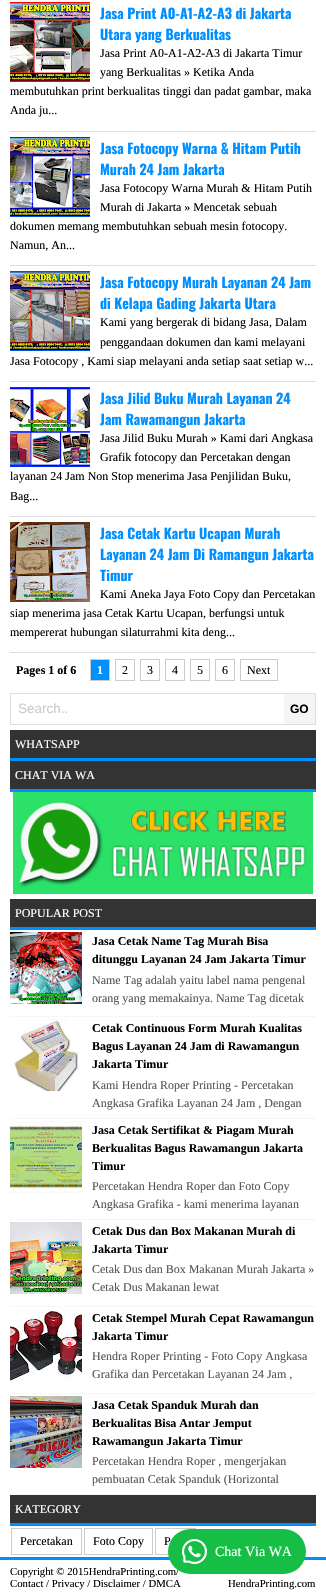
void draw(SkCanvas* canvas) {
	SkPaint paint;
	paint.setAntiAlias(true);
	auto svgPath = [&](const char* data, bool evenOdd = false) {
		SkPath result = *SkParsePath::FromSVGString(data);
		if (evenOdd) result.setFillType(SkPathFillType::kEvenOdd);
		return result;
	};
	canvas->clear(0xffffffff);
	paint.setColor(0xffdddddd);
	canvas->drawRect(SkRect::MakeXYWH(10, 131, 306, 1), paint);
	canvas->drawImageRect(SkImages::DeferredFromEncodedData(SkData::MakeFromFileName("img1.png")), SkRect::MakeXYWH(10, 2, 80, 80), SkSamplingOptions());
	SkFont f1(fontMgr->matchFamilyStyle("Oswald", SkFontStyle::Bold()), 14);
	f1.setSubpixel(true);
	paint.setColor(0xff008fff);
	canvas->drawString("Jasa Print A0-A1-A2-A3 di Jakarta", 100, 19, f1, paint);
	canvas->drawString("Utara yang Berkualitas", 100, 40, f1, paint);
	SkFont f2(fontMgr->matchFamilyStyle("Liberation Serif", SkFontStyle::Normal()), 12);
	f2.setSubpixel(true);
	paint.setColor(0xff000000);
	canvas->drawString("Jasa Print A0-A1-A2-A3 di Jakarta Timur", 100, 57, f2, paint);
	canvas->drawString("yang Berkualitas » Ketika Anda", 100, 76, f2, paint);
	canvas->drawString("membutuhkan print berkualitas tinggi dan padat gambar, maka", 10, 95, f2, paint);
	canvas->drawString("Anda ju...", 10, 114, f2, paint);
	paint.setColor(0xffdddddd);
	canvas->drawRect(SkRect::MakeXYWH(10, 265, 306, 1), paint);
	canvas->drawImageRect(SkImages::DeferredFromEncodedData(SkData::MakeFromFileName("img2.png")), SkRect::MakeXYWH(10, 137, 80, 80), SkSamplingOptions());
	paint.setColor(0xff008fff);
	canvas->drawString("Jasa Fotocopy Warna & Hitam Putih", 100, 154, f1, paint);
	canvas->drawString("Murah 24 Jam Jakarta", 100, 175, f1, paint);
	paint.setColor(0xff000000);
	canvas->drawString("Jasa Fotocopy Warna Murah & Hitam Putih", 100, 192, f2, paint);
	canvas->drawString("Murah di Jakarta » Mencetak sebuah", 100, 211, f2, paint);
	canvas->drawString("dokumen memang membutuhkan sebuah mesin fotocopy.", 10, 230, f2, paint);
	canvas->drawString("Namun, An...", 10, 249, f2, paint);
	paint.setColor(0xffdddddd);
	canvas->drawRect(SkRect::MakeXYWH(10, 381, 306, 1), paint);
	canvas->drawImageRect(SkImages::DeferredFromEncodedData(SkData::MakeFromFileName("img3.png")), SkRect::MakeXYWH(10, 271, 80, 80), SkSamplingOptions());
	paint.setColor(0xff008fff);
	canvas->drawString("Jasa Fotocopy Murah Layanan 24 Jam", 100, 288, f1, paint);
	canvas->drawString("di Kelapa Gading Jakarta Utara", 100, 309, f1, paint);
	paint.setColor(0xff000000);
	canvas->drawString("Kami yang bergerak di bidang Jasa, Dalam", 100, 326, f2, paint);
	canvas->drawString("penggandaan dokumen dan kami melayani", 100, 346, f2, paint);
	canvas->drawString("Jasa Fotocopy , Kami siap melayani anda setiap saat setiap w...", 10, 365, f2, paint);
	paint.setColor(0xffdddddd);
	canvas->drawRect(SkRect::MakeXYWH(10, 516, 306, 1), paint);
	canvas->drawImageRect(SkImages::DeferredFromEncodedData(SkData::MakeFromFileName("img4.png")), SkRect::MakeXYWH(10, 387, 80, 80), SkSamplingOptions());
	paint.setColor(0xff008fff);
	canvas->drawString("Jasa Jilid Buku Murah Layanan 24", 100, 404, f1, paint);
	canvas->drawString("Jam Rawamangun Jakarta", 100, 425, f1, paint);
	paint.setColor(0xff000000);
	canvas->drawString("Jasa Jilid Buku Murah » Kami dari Angkasa", 100, 442, f2, paint);
	canvas->drawString("Grafik fotocopy dan Percetakan dengan", 100, 461, f2, paint);
	canvas->drawString("layanan 24 Jam Non Stop menerima Jasa Penjilidan Buku,", 10, 480, f2, paint);
	canvas->drawString("Bag...", 10, 500, f2, paint);
	paint.setColor(0xffdddddd);
	canvas->drawRect(SkRect::MakeXYWH(10, 652, 306, 1), paint);
	canvas->drawImageRect(SkImages::DeferredFromEncodedData(SkData::MakeFromFileName("img5.png")), SkRect::MakeXYWH(10, 522, 80, 80), SkSamplingOptions());
	paint.setColor(0xff008fff);
	canvas->drawString("Jasa Cetak Kartu Ucapan Murah", 100, 539, f1, paint);
	canvas->drawString("Layanan 24 Jam Di Ramangun Jakarta", 100, 560, f1, paint);
	canvas->drawString("Timur", 100, 581, f1, paint);
	paint.setColor(0xff000000);
	canvas->drawString("Kami Aneka Jaya Foto Copy dan Percetakan", 100, 598, f2, paint);
	canvas->drawString("siap menerima jasa Cetak Kartu Ucapan, berfungsi untuk", 10, 617, f2, paint);
	canvas->drawString("mempererat hubungan silaturrahmi kita deng...", 10, 636, f2, paint);
	SkFont f3(fontMgr->matchFamilyStyle("Liberation Serif", SkFontStyle::Bold()), 12);
	f3.setSubpixel(true);
	canvas->drawString("Pages 1 of 6", 16, 674, f3, paint);
	paint.setColor(0xff008fff);
	canvas->drawRect(SkRect::MakeXYWH(90.5, 659.5, 19, 21), paint);
	paint.setStroke(true);
	paint.setStrokeWidth(1);
	paint.setColor(0xffcccccc);
	canvas->drawRect(SkRect::MakeXYWH(90.5, 659.5, 19, 21), paint);
	paint.setStroke(false);
	paint.setColor(0xffffffff);
	canvas->drawString("1", 97, 674, f3, paint);
	paint.setStroke(true);
	paint.setColor(0xffcccccc);
	canvas->drawRect(SkRect::MakeXYWH(115.5, 659.5, 19, 21), paint);
	paint.setStroke(false);
	paint.setColor(0xff000000);
	canvas->drawString("2", 122, 674, f2, paint);
	paint.setStroke(true);
	paint.setColor(0xffcccccc);
	canvas->drawRect(SkRect::MakeXYWH(140.5, 659.5, 19, 21), paint);
	paint.setStroke(false);
	paint.setColor(0xff000000);
	canvas->drawString("3", 147, 674, f2, paint);
	paint.setStroke(true);
	paint.setColor(0xffcccccc);
	canvas->drawRect(SkRect::MakeXYWH(165.5, 659.5, 19, 21), paint);
	paint.setStroke(false);
	paint.setColor(0xff000000);
	canvas->drawString("4", 172, 674, f2, paint);
	paint.setStroke(true);
	paint.setColor(0xffcccccc);
	canvas->drawRect(SkRect::MakeXYWH(190.5, 659.5, 19, 21), paint);
	paint.setStroke(false);
	paint.setColor(0xff000000);
	canvas->drawString("5", 197, 674, f2, paint);
	paint.setStroke(true);
	paint.setColor(0xffcccccc);
	canvas->drawRect(SkRect::MakeXYWH(215.5, 659.5, 19, 21), paint);
	paint.setStroke(false);
	paint.setColor(0xff000000);
	canvas->drawString("6", 222, 674, f2, paint);
	paint.setStroke(true);
	paint.setColor(0xffcccccc);
	canvas->drawRect(SkRect::MakeXYWH(240.5, 659.5, 37, 21), paint);
	paint.setStroke(false);
	paint.setColor(0xff000000);
	canvas->drawString("Next", 247, 674, f2, paint);
	paint.setStroke(true);
	paint.setColor(0xffdddddd);
	canvas->drawRect(SkRect::MakeXYWH(10.5, 693.5, 305, 31), paint);
	SkFont f4(fontMgr->matchFamilyStyle("Liberation Sans", SkFontStyle::Normal()), 13.5);
	f4.setSubpixel(true);
	paint.setStroke(false);
	paint.setColor(0xffcccccc);
	canvas->drawString("Search..", 18, 713, f4, paint);
	paint.setColor(0xfff5f5f5);
	canvas->drawRect(SkRect::MakeXYWH(284, 694, 31, 30), paint);
	SkFont f5(fontMgr->matchFamilyStyle("Liberation Sans", SkFontStyle::Bold()), 12);
	f5.setSubpixel(true);
	paint.setColor(0xff000000);
	canvas->drawString("GO", 290, 713, f5, paint);
	paint.setColor(0xff333333);
	canvas->drawRect(SkRect::MakeXYWH(10, 730, 306, 28), paint);
	paint.setColor(0xff008fff);
	canvas->drawRect(SkRect::MakeXYWH(10, 758, 306, 3), paint);
	paint.setColor(0xffffffff);
	canvas->drawString("WHATSAPP", 15, 748, f2, paint);
	paint.setColor(0xff333333);
	canvas->drawRect(SkRect::MakeXYWH(10, 761, 306, 28), paint);
	paint.setColor(0xff008fff);
	canvas->drawRect(SkRect::MakeXYWH(10, 789, 306, 3), paint);
	paint.setColor(0xffffffff);
	canvas->drawString("CHAT VIA WA", 15, 779, f2, paint);
	canvas->drawImageRect(SkImages::DeferredFromEncodedData(SkData::MakeFromFileName("img6.png")), SkRect::MakeXYWH(13, 792, 300, 102), SkSamplingOptions());
	paint.setColor(0xff333333);
	canvas->drawRect(SkRect::MakeXYWH(10, 899, 306, 28), paint);
	paint.setColor(0xff008fff);
	canvas->drawRect(SkRect::MakeXYWH(10, 927, 306, 3), paint);
	paint.setColor(0xffffffff);
	canvas->drawString("POPULAR POST", 15, 917, f2, paint);
	paint.setStroke(true);
	paint.setColor(0xffeeeeee);
	paint.setPathEffect(SkDashPathEffect::Make({{1, 1}}, 0));
	canvas->drawPath(svgPath("M10 1016.5H316"), paint);
	paint.setPathEffect(nullptr);
	canvas->drawImageRect(SkImages::DeferredFromEncodedData(SkData::MakeFromFileName("img7.png")), SkRect::MakeXYWH(10, 932, 72, 72), SkSamplingOptions());
	paint.setStroke(false);
	paint.setColor(0xff000000);
	canvas->drawString("Jasa Cetak Name Tag Murah Bisa", 92, 945, f3, paint);
	canvas->drawString("ditunggu Layanan 24 Jam Jakarta Timur", 92, 963, f3, paint);
	paint.setColor(0xff555555);
	canvas->drawString("Name Tag adalah yaitu label nama pengenal", 92, 984, f2, paint);
	canvas->drawString("orang yang memakainya. Name Tag dicetak", 92, 1002, f2, paint);
	paint.setStroke(true);
	paint.setColor(0xffeeeeee);
	paint.setPathEffect(SkDashPathEffect::Make({{1, 1}}, 0));
	canvas->drawPath(svgPath("M10 1118.5H316"), paint);
	paint.setPathEffect(nullptr);
	canvas->drawImageRect(SkImages::DeferredFromEncodedData(SkData::MakeFromFileName("img8.png")), SkRect::MakeXYWH(10, 1019, 72, 72), SkSamplingOptions());
	paint.setStroke(false);
	paint.setColor(0xff000000);
	canvas->drawString("Cetak Continuous Form Murah Kualitas", 92, 1032, f3, paint);
	canvas->drawString("Bagus Layanan 24 Jam di Rawamangun", 92, 1050, f3, paint);
	canvas->drawString("Jakarta Timur", 92, 1068, f3, paint);
	paint.setColor(0xff555555);
	canvas->drawString("Kami Hendra Roper Printing - Percetakan", 92, 1089, f2, paint);
	canvas->drawString("Angkasa Grafika Layanan 24 Jam , Dengan", 92, 1107, f2, paint);
	paint.setStroke(true);
	paint.setColor(0xffeeeeee);
	paint.setPathEffect(SkDashPathEffect::Make({{1, 1}}, 0));
	canvas->drawPath(svgPath("M10 1219.5H316"), paint);
	paint.setPathEffect(nullptr);
	canvas->drawImageRect(SkImages::DeferredFromEncodedData(SkData::MakeFromFileName("img9.png")), SkRect::MakeXYWH(10, 1121, 72, 72), SkSamplingOptions());
	paint.setStroke(false);
	paint.setColor(0xff000000);
	canvas->drawString("Jasa Cetak Sertifikat & Piagam Murah", 92, 1134, f3, paint);
	canvas->drawString("Berkualitas Bagus Rawamangun Jakarta", 92, 1152, f3, paint);
	canvas->drawString("Timur", 92, 1170, f3, paint);
	paint.setColor(0xff555555);
	canvas->drawString("Percetakan Hendra Roper dan Foto Copy", 92, 1190, f2, paint);
	canvas->drawString("Angkasa Grafika - kami menerima layanan", 92, 1208, f2, paint);
	paint.setStroke(true);
	paint.setColor(0xffeeeeee);
	paint.setPathEffect(SkDashPathEffect::Make({{1, 1}}, 0));
	canvas->drawPath(svgPath("M10 1306.5H316"), paint);
	paint.setPathEffect(nullptr);
	canvas->drawImageRect(SkImages::DeferredFromEncodedData(SkData::MakeFromFileName("img10.png")), SkRect::MakeXYWH(10, 1222, 72, 72), SkSamplingOptions());
	paint.setStroke(false);
	paint.setColor(0xff000000);
	canvas->drawString("Cetak Dus dan Box Makanan Murah di", 92, 1235, f3, paint);
	canvas->drawString("Jakarta Timur", 92, 1253, f3, paint);
	paint.setColor(0xff555555);
	canvas->drawString("Cetak Dus dan Box Makanan Murah Jakarta »", 92, 1273, f2, paint);
	canvas->drawString("Cetak Dus Makanan lewat", 92, 1291, f2, paint);
	paint.setStroke(true);
	paint.setColor(0xffeeeeee);
	paint.setPathEffect(SkDashPathEffect::Make({{1, 1}}, 0));
	canvas->drawPath(svgPath("M10 1393.5H316"), paint);
	paint.setPathEffect(nullptr);
	canvas->drawImageRect(SkImages::DeferredFromEncodedData(SkData::MakeFromFileName("img11.png")), SkRect::MakeXYWH(10, 1309, 72, 72), SkSamplingOptions());
	paint.setStroke(false);
	paint.setColor(0xff000000);
	canvas->drawString("Cetak Stempel Murah Cepat Rawamangun", 92, 1322, f3, paint);
	canvas->drawString("Jakarta Timur", 92, 1340, f3, paint);
	paint.setColor(0xff555555);
	canvas->drawString("Hendra Roper Printing - Foto Copy Angkasa", 92, 1360, f2, paint);
	canvas->drawString("Grafika dan Percetakan Layanan 24 Jam ,", 92, 1378, f2, paint);
	paint.setStroke(true);
	paint.setColor(0xffeeeeee);
	paint.setPathEffect(SkDashPathEffect::Make({{1, 1}}, 0));
	canvas->drawPath(svgPath("M10 1494.5H316"), paint);
	paint.setPathEffect(nullptr);
	canvas->drawImageRect(SkImages::DeferredFromEncodedData(SkData::MakeFromFileName("img12.png")), SkRect::MakeXYWH(10, 1396, 72, 72), SkSamplingOptions());
	paint.setStroke(false);
	paint.setColor(0xff000000);
	canvas->drawString("Jasa Cetak Spanduk Murah dan", 92, 1409, f3, paint);
	canvas->drawString("Berkualitas Bisa Antar Jemput", 92, 1427, f3, paint);
	canvas->drawString("Rawamangun Jakarta Timur", 92, 1445, f3, paint);
	paint.setColor(0xff555555);
	canvas->drawString("Percetakan Hendra Roper , mengerjakan", 92, 1465, f2, paint);
	canvas->drawString("pembuatan Cetak Spanduk (Horizontal", 92, 1483, f2, paint);
	paint.setColor(0xff333333);
	canvas->drawRect(SkRect::MakeXYWH(10, 1495, 306, 28), paint);
	paint.setColor(0xff008fff);
	canvas->drawRect(SkRect::MakeXYWH(10, 1523, 306, 3), paint);
	paint.setColor(0xffffffff);
	canvas->drawString("KATEGORY", 15, 1513, f2, paint);
	paint.setStroke(true);
	paint.setColor(0xffcccccc);
	canvas->drawRect(SkRect::MakeXYWH(11.5, 1528.5, 70, 26), paint);
	paint.setStroke(false);
	paint.setColor(0xff000000);
	canvas->drawString("Percetakan", 20, 1545, f2, paint);
	paint.setStroke(true);
	paint.setColor(0xffcccccc);
	canvas->drawRect(SkRect::MakeXYWH(84.5, 1528.5, 68, 26), paint);
	paint.setStroke(false);
	paint.setColor(0xff000000);
	canvas->drawString("Foto Copy", 93, 1545, f2, paint);
	paint.setStroke(true);
	paint.setColor(0xffcccccc);
	canvas->drawRect(SkRect::MakeXYWH(155.5, 1528.5, 40, 26), paint);
	paint.setStroke(false);
	paint.setColor(0xff000000);
	canvas->drawString("P", 164, 1545, f2, paint);
	paint.setColor(0xff008fff);
	canvas->drawRect(SkRect::MakeXYWH(0, 1557, 326, 3), paint);
	SkFont f6(fontMgr->matchFamilyStyle("Liberation Serif", SkFontStyle::Normal()), 10.75);
	f6.setSubpixel(true);
	paint.setColor(0xff000000);
	canvas->drawString("Copyright © 2015HendraPrinting.com/", 10, 1575, f6, paint);
	canvas->drawString("Contact / Privacy / Disclaimer / DMCA", 10, 1587, f6, paint);
	canvas->drawString("HendraPrinting.com", 228, 1587, f6, paint);
	paint.setColor(0xff16be45);
	canvas->drawRoundRect(SkRect::MakeXYWH(168, 1529, 138, 45), 22.5, 22.5, paint);
	canvas->drawImageRect(SkImages::DeferredFromEncodedData(SkData::MakeFromFileName("img13.png")), SkRect::MakeXYWH(182, 1539, 25, 25), SkSamplingOptions());
	SkFont f7(fontMgr->matchFamilyStyle("Liberation Serif", SkFontStyle::Normal()), 14);
	f7.setSubpixel(true);
	paint.setColor(0xffffffff);
	canvas->drawString("Chat Via WA", 215, 1556, f7, paint);
}
